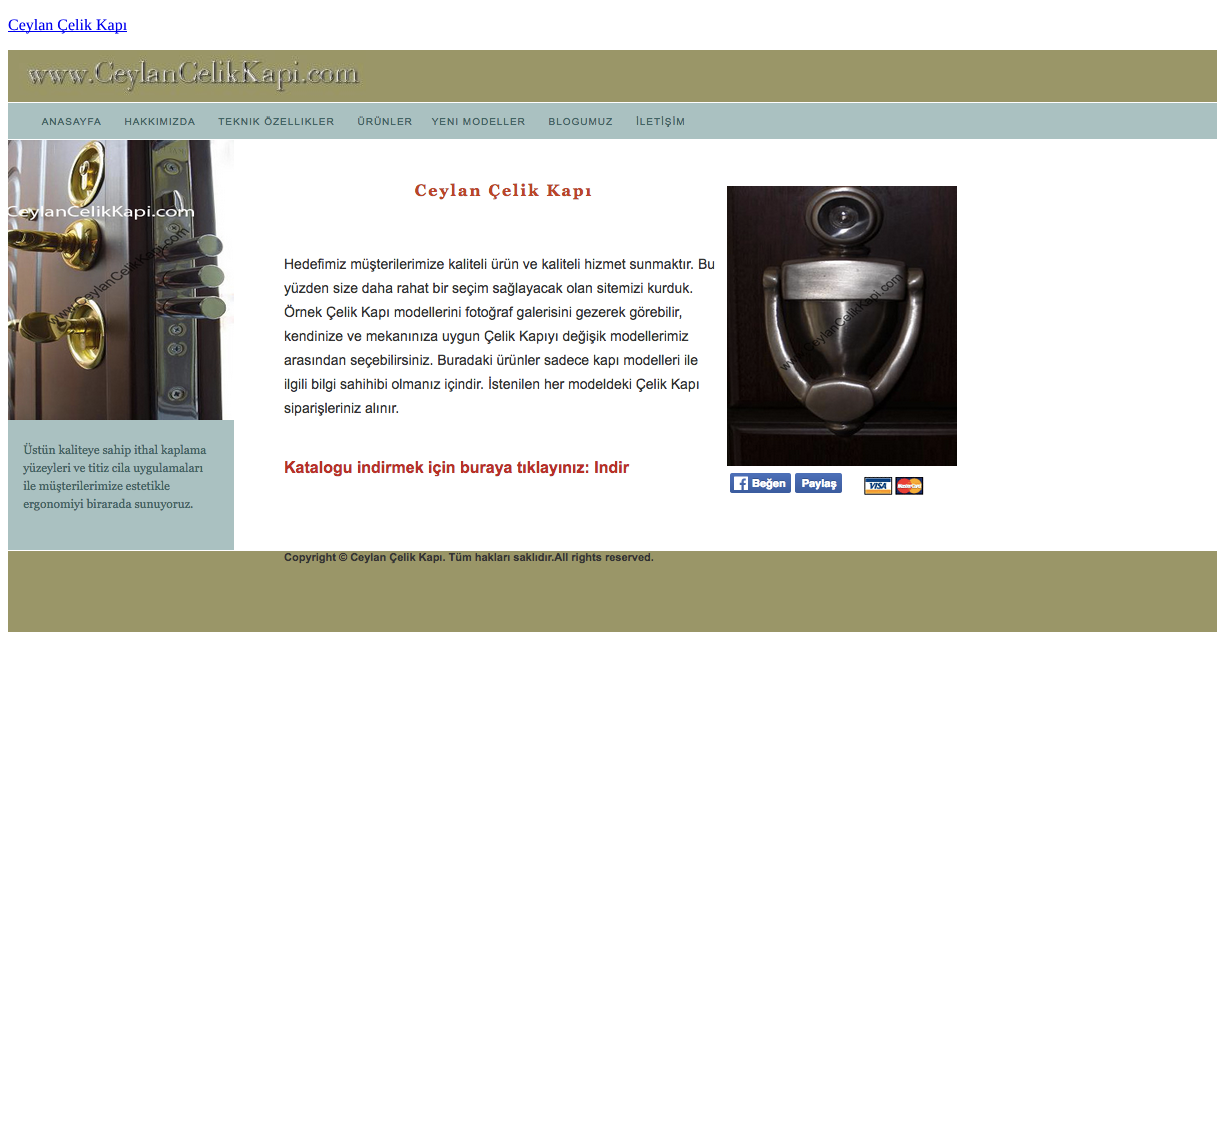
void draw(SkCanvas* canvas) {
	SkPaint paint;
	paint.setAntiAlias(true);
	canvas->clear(0xffffffff);
	paint.setColor(0xff0000ee);
	canvas->drawRect(SkRect::MakeXYWH(8, 31, 119, 1), paint);
	SkFont f1(fontMgr->matchFamilyStyle("Liberation Serif", SkFontStyle::Normal()), 16);
	f1.setSubpixel(true);
	canvas->drawString("Ceylan Çelik Kapı", 8, 30, f1, paint);
	canvas->drawImageRect(SkImages::DeferredFromEncodedData(SkData::MakeFromFileName("img1.png")), SkRect::MakeXYWH(8, 50, 1209, 582), SkSamplingOptions());
}
